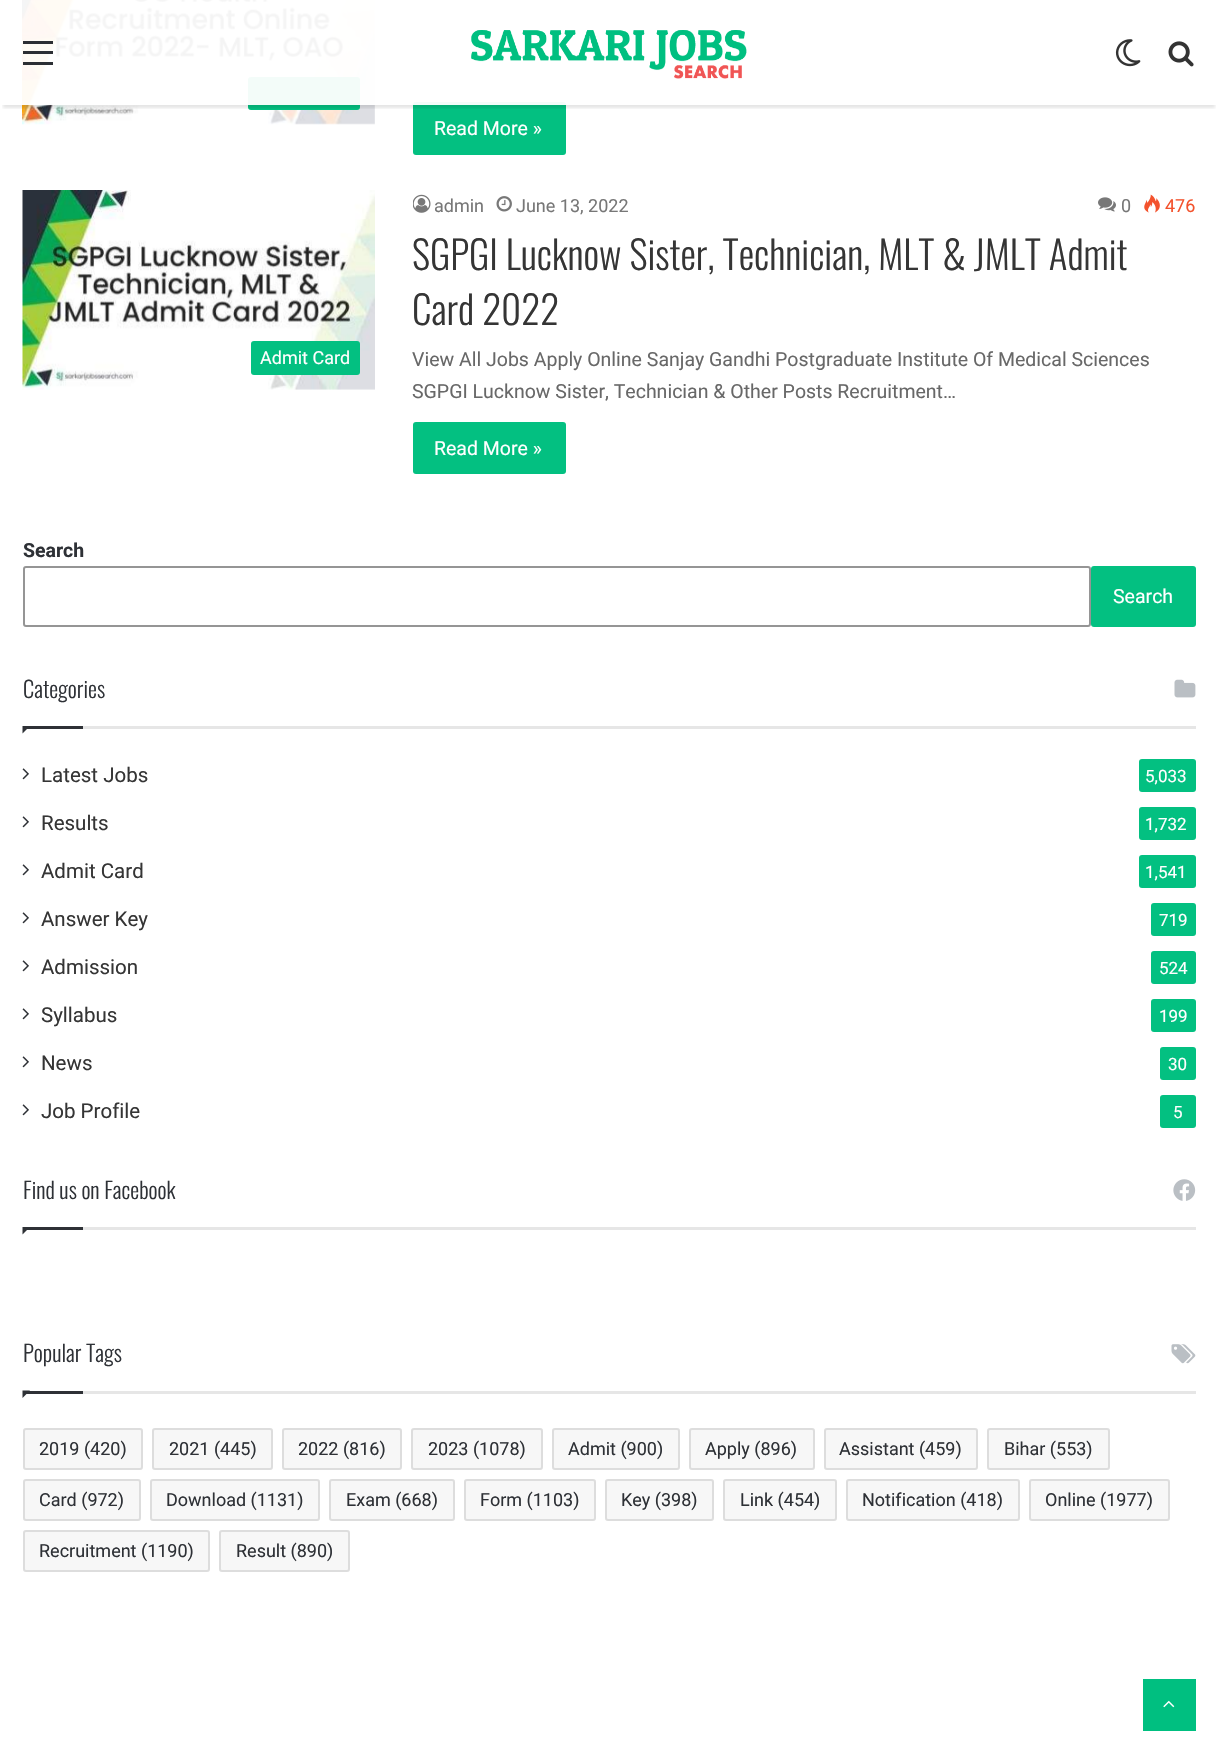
void draw(SkCanvas* canvas) {
	SkPaint paint;
	paint.setAntiAlias(true);
	auto svgPath = [&](const char* data, bool evenOdd = false) {
		SkPath result = *SkParsePath::FromSVGString(data);
		if (evenOdd) result.setFillType(SkPathFillType::kEvenOdd);
		return result;
	};
	canvas->clear(0xffffffff);
	canvas->drawImageRect(SkImages::DeferredFromEncodedData(SkData::MakeFromFileName("img4.png")), SkRect::MakeXYWH(22, 0, 353, 125), SkSamplingOptions());
	paint.setColor(0xff03c081);
	canvas->drawRoundRect(SkRect::MakeXYWH(248, 77, 112, 33), 3, 3, paint);
	canvas->drawRoundRect(SkRect::MakeXYWH(413, 102, 153, 53), 3, 3, paint);
	canvas->save();
	canvas->clipRect(SkRect::MakeXYWH(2, 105, 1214, 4));
	paint.setColor(0x1a000000);
	paint.setMaskFilter(SkMaskFilter::MakeBlur(kNormal_SkBlurStyle, 1.5));
	canvas->drawRect(SkRect::MakeXYWH(3, 9, 1212, 99), paint);
	paint.setMaskFilter(nullptr);
	canvas->restore();
	paint.setColor(0xf2ffffff);
	canvas->drawRect(SkRect::MakeXYWH(22, 0, 544, 105), paint);
	paint.setColor(0xff2c2f34);
	canvas->drawRect(SkRect::MakeXYWH(23, 51, 30, 3), paint);
	canvas->drawRect(SkRect::MakeXYWH(23, 41, 30, 3), paint);
	canvas->drawRect(SkRect::MakeXYWH(23, 62, 30, 3), paint);
	canvas->drawImageRect(SkImages::DeferredFromEncodedData(SkData::MakeFromFileName("img1.png")), SkRect::MakeXYWH(471, 30, 276, 49), SkSamplingOptions());
	canvas->drawImageRect(SkImages::DeferredFromEncodedData(SkData::MakeFromFileName("img2.png")), SkRect::MakeXYWH(1115, 39, 26, 28), SkSamplingOptions());
	canvas->drawImageRect(SkImages::DeferredFromEncodedData(SkData::MakeFromFileName("img3.png")), SkRect::MakeXYWH(1168, 41, 26, 26), SkSamplingOptions());
	SkFont f1(fontMgr->matchFamilyStyle("Roboto", SkFontStyle::Normal()), 19.5);
	f1.setSubpixel(true);
	paint.setColor(0xffffffff);
	canvas->drawString("Read More »", 434, 135, f1, paint);
	canvas->drawImageRect(SkImages::DeferredFromEncodedData(SkData::MakeFromFileName("img5.png")), SkRect::MakeXYWH(22, 190, 353, 200), SkSamplingOptions());
	paint.setColor(0xff03c081);
	canvas->drawRoundRect(SkRect::MakeXYWH(251, 341, 109, 34), 3, 3, paint);
	SkFont f2(fontMgr->matchFamilyStyle("Roboto", SkFontStyle::Normal()), 18);
	f2.setSubpixel(true);
	paint.setColor(0xffffffff);
	canvas->drawString("Admit Card", 260, 364, f2, paint);
	canvas->drawImageRect(SkImages::DeferredFromEncodedData(SkData::MakeFromFileName("img6.png")), SkRect::MakeXYWH(413, 194, 18, 19), SkSamplingOptions());
	paint.setColor(0xff777777);
	canvas->drawString("admin", 434, 212, f2, paint);
	canvas->drawImageRect(SkImages::DeferredFromEncodedData(SkData::MakeFromFileName("img7.png")), SkRect::MakeXYWH(496, 196, 16, 16), SkSamplingOptions());
	canvas->drawString("June 13, 2022", 516, 212, f2, paint);
	canvas->drawImageRect(SkImages::DeferredFromEncodedData(SkData::MakeFromFileName("img8.png")), SkRect::MakeXYWH(1098, 197, 18, 15), SkSamplingOptions());
	canvas->drawString("0", 1121, 212, f2, paint);
	canvas->drawImageRect(SkImages::DeferredFromEncodedData(SkData::MakeFromFileName("img9.png")), SkRect::MakeXYWH(1144, 194, 16, 19), SkSamplingOptions());
	paint.setColor(0xfff3522c);
	canvas->drawString("476", 1165, 212, f2, paint);
	SkFont f3(fontMgr->matchFamilyStyle("Oswald", SkFontStyle(300, SkFontStyle::kNormal_Width, SkFontStyle::kUpright_Slant)), 39);
	f3.setSubpixel(true);
	paint.setColor(0xff353535);
	canvas->drawString("SGPGI Lucknow Sister, Technician, MLT & JMLT Admit", 412, 270, f3, paint);
	canvas->drawString("Card 2022", 412, 325, f3, paint);
	paint.setColor(0xff686868);
	canvas->drawString("View All Jobs Apply Online Sanjay Gandhi Postgraduate Institute Of Medical Sciences", 412, 366, f1, paint);
	canvas->drawString("SGPGI Lucknow Sister, Technician & Other Posts Recruitment…", 412, 398, f1, paint);
	paint.setColor(0xff03c081);
	canvas->drawRoundRect(SkRect::MakeXYWH(413, 422, 153, 52), 3, 3, paint);
	paint.setColor(0xffffffff);
	canvas->drawString("Read More »", 434, 455, f1, paint);
	SkFont f4(fontMgr->matchFamilyStyle("Roboto", SkFontStyle::Bold()), 19.5);
	f4.setSubpixel(true);
	paint.setColor(0xff2e3136);
	canvas->drawString("Search", 23, 557, f4, paint);
	paint.setStroke(true);
	paint.setStrokeWidth(2);
	paint.setColor(0xff959595);
	canvas->drawRoundRect(SkRect::MakeXYWH(24, 567, 1066, 59), 2, 2, paint);
	paint.setStroke(false);
	paint.setColor(0xff03c081);
	canvas->drawRoundRect(SkRect::MakeXYWH(1091, 566, 105, 61), 3, 3, paint);
	paint.setColor(0xffffffff);
	canvas->drawString("Search", 1113, 603, f1, paint);
	paint.setColor(0xffe6e6e6);
	canvas->drawRect(SkRect::MakeXYWH(83, 726, 1113, 3), paint);
	SkFont f5(fontMgr->matchFamilyStyle("Oswald", SkFontStyle(300, SkFontStyle::kNormal_Width, SkFontStyle::kUpright_Slant)), 22.5);
	f5.setSubpixel(true);
	paint.setColor(0xff2e3136);
	canvas->drawString("Categories", 23, 698, f5, paint);
	canvas->drawImageRect(SkImages::DeferredFromEncodedData(SkData::MakeFromFileName("img10.png")), SkRect::MakeXYWH(1174, 679, 22, 19), SkSamplingOptions());
	canvas->drawPath(svgPath("M22.5 726H30L22.5 733.5Z"), paint);
	canvas->drawRect(SkRect::MakeXYWH(23, 726, 60, 3), paint);
	canvas->drawImageRect(SkImages::DeferredFromEncodedData(SkData::MakeFromFileName("img11.png")), SkRect::MakeXYWH(22, 768, 7, 12), SkSamplingOptions());
	SkFont f6(fontMgr->matchFamilyStyle("Roboto", SkFontStyle::Normal()), 20.5);
	f6.setSubpixel(true);
	paint.setColor(0xff353535);
	canvas->drawString("Latest Jobs", 41, 782, f6, paint);
	paint.setColor(0xff03c081);
	canvas->drawRoundRect(SkRect::MakeXYWH(1139, 759, 57, 33), 3, 3, paint);
	SkFont f7(fontMgr->matchFamilyStyle("Roboto", SkFontStyle::Normal()), 17);
	f7.setSubpixel(true);
	paint.setColor(0xffffffff);
	canvas->drawString("5,033", 1145, 782, f7, paint);
	canvas->drawImageRect(SkImages::DeferredFromEncodedData(SkData::MakeFromFileName("img11.png")), SkRect::MakeXYWH(22, 816, 7, 12), SkSamplingOptions());
	paint.setColor(0xff353535);
	canvas->drawString("Results", 41, 830, f6, paint);
	paint.setColor(0xff03c081);
	canvas->drawRoundRect(SkRect::MakeXYWH(1139, 807, 57, 33), 3, 3, paint);
	paint.setColor(0xffffffff);
	canvas->drawString("1,732", 1145, 830, f7, paint);
	canvas->drawImageRect(SkImages::DeferredFromEncodedData(SkData::MakeFromFileName("img11.png")), SkRect::MakeXYWH(22, 864, 7, 12), SkSamplingOptions());
	paint.setColor(0xff353535);
	canvas->drawString("Admit Card", 41, 878, f6, paint);
	paint.setColor(0xff03c081);
	canvas->drawRoundRect(SkRect::MakeXYWH(1139, 855, 57, 33), 3, 3, paint);
	paint.setColor(0xffffffff);
	canvas->drawString("1,541", 1145, 878, f7, paint);
	canvas->drawImageRect(SkImages::DeferredFromEncodedData(SkData::MakeFromFileName("img11.png")), SkRect::MakeXYWH(22, 912, 7, 12), SkSamplingOptions());
	paint.setColor(0xff353535);
	canvas->drawString("Answer Key", 41, 926, f6, paint);
	paint.setColor(0xff03c081);
	canvas->drawRoundRect(SkRect::MakeXYWH(1151, 903, 45, 33), 3, 3, paint);
	paint.setColor(0xffffffff);
	canvas->drawString("719", 1159, 926, f7, paint);
	canvas->drawImageRect(SkImages::DeferredFromEncodedData(SkData::MakeFromFileName("img11.png")), SkRect::MakeXYWH(22, 960, 7, 12), SkSamplingOptions());
	paint.setColor(0xff353535);
	canvas->drawString("Admission", 41, 974, f6, paint);
	paint.setColor(0xff03c081);
	canvas->drawRoundRect(SkRect::MakeXYWH(1151, 951, 45, 33), 3, 3, paint);
	paint.setColor(0xffffffff);
	canvas->drawString("524", 1159, 974, f7, paint);
	canvas->drawImageRect(SkImages::DeferredFromEncodedData(SkData::MakeFromFileName("img11.png")), SkRect::MakeXYWH(22, 1008, 7, 12), SkSamplingOptions());
	paint.setColor(0xff353535);
	canvas->drawString("Syllabus", 41, 1022, f6, paint);
	paint.setColor(0xff03c081);
	canvas->drawRoundRect(SkRect::MakeXYWH(1151, 999, 45, 33), 3, 3, paint);
	paint.setColor(0xffffffff);
	canvas->drawString("199", 1159, 1022, f7, paint);
	canvas->drawImageRect(SkImages::DeferredFromEncodedData(SkData::MakeFromFileName("img11.png")), SkRect::MakeXYWH(22, 1056, 7, 12), SkSamplingOptions());
	paint.setColor(0xff353535);
	canvas->drawString("News", 41, 1070, f6, paint);
	paint.setColor(0xff03c081);
	canvas->drawRoundRect(SkRect::MakeXYWH(1160, 1047, 36, 33), 3, 3, paint);
	paint.setColor(0xffffffff);
	canvas->drawString("30", 1168, 1070, f7, paint);
	canvas->drawImageRect(SkImages::DeferredFromEncodedData(SkData::MakeFromFileName("img11.png")), SkRect::MakeXYWH(22, 1104, 7, 12), SkSamplingOptions());
	paint.setColor(0xff353535);
	canvas->drawString("Job Profile", 41, 1118, f6, paint);
	paint.setColor(0xff03c081);
	canvas->drawRoundRect(SkRect::MakeXYWH(1160, 1095, 36, 33), 3, 3, paint);
	paint.setColor(0xffffffff);
	canvas->drawString("5", 1173, 1118, f7, paint);
	paint.setColor(0xffe6e6e6);
	canvas->drawRect(SkRect::MakeXYWH(83, 1227, 1113, 3), paint);
	paint.setColor(0xff2e3136);
	canvas->drawString("Find us on Facebook", 23, 1199, f5, paint);
	canvas->drawImageRect(SkImages::DeferredFromEncodedData(SkData::MakeFromFileName("img12.png")), SkRect::MakeXYWH(1173, 1179, 23, 22), SkSamplingOptions());
	canvas->drawPath(svgPath("M22.5 1227H30L22.5 1234.5Z"), paint);
	canvas->drawRect(SkRect::MakeXYWH(23, 1227, 60, 3), paint);
	paint.setColor(0xffe6e6e6);
	canvas->drawRect(SkRect::MakeXYWH(83, 1391, 1113, 3), paint);
	paint.setColor(0xff2e3136);
	canvas->drawString("Popular Tags", 23, 1362, f5, paint);
	canvas->drawImageRect(SkImages::DeferredFromEncodedData(SkData::MakeFromFileName("img13.png")), SkRect::MakeXYWH(1171, 1344, 25, 20), SkSamplingOptions());
	canvas->drawPath(svgPath("M22.5 1390.5H30L22.5 1398Z"), paint);
	canvas->drawRect(SkRect::MakeXYWH(23, 1391, 60, 3), paint);
	paint.setColor(0xfff7f7f7);
	canvas->drawRoundRect(SkRect::MakeXYWH(23, 1428, 120, 42), 3, 3, paint);
	paint.setStroke(true);
	paint.setColor(0x1a030303);
	canvas->drawRoundRect(SkRect::MakeXYWH(24, 1429, 118, 40), 2, 2, paint);
	paint.setStroke(false);
	paint.setColor(0xff2e3136);
	canvas->drawString("2019 (420)", 39, 1455, f2, paint);
	paint.setColor(0xfff7f7f7);
	canvas->drawRoundRect(SkRect::MakeXYWH(152, 1428, 121, 42), 3, 3, paint);
	paint.setStroke(true);
	paint.setColor(0x1a030303);
	canvas->drawRoundRect(SkRect::MakeXYWH(153, 1429, 119, 40), 2, 2, paint);
	paint.setStroke(false);
	paint.setColor(0xff2e3136);
	canvas->drawString("2021 (445)", 169, 1455, f2, paint);
	paint.setColor(0xfff7f7f7);
	canvas->drawRoundRect(SkRect::MakeXYWH(282, 1428, 120, 42), 3, 3, paint);
	paint.setStroke(true);
	paint.setColor(0x1a030303);
	canvas->drawRoundRect(SkRect::MakeXYWH(283, 1429, 118, 40), 2, 2, paint);
	paint.setStroke(false);
	paint.setColor(0xff2e3136);
	canvas->drawString("2022 (816)", 298, 1455, f2, paint);
	paint.setColor(0xfff7f7f7);
	canvas->drawRoundRect(SkRect::MakeXYWH(411, 1428, 132, 42), 3, 3, paint);
	paint.setStroke(true);
	paint.setColor(0x1a030303);
	canvas->drawRoundRect(SkRect::MakeXYWH(412, 1429, 130, 40), 2, 2, paint);
	paint.setStroke(false);
	paint.setColor(0xff2e3136);
	canvas->drawString("2023 (1078)", 428, 1455, f2, paint);
	paint.setColor(0xfff7f7f7);
	canvas->drawRoundRect(SkRect::MakeXYWH(552, 1428, 128, 42), 3, 3, paint);
	paint.setStroke(true);
	paint.setColor(0x1a030303);
	canvas->drawRoundRect(SkRect::MakeXYWH(553, 1429, 126, 40), 2, 2, paint);
	paint.setStroke(false);
	paint.setColor(0xff2e3136);
	canvas->drawString("Admit (900)", 568, 1455, f2, paint);
	paint.setColor(0xfff7f7f7);
	canvas->drawRoundRect(SkRect::MakeXYWH(689, 1428, 126, 42), 3, 3, paint);
	paint.setStroke(true);
	paint.setColor(0x1a030303);
	canvas->drawRoundRect(SkRect::MakeXYWH(690, 1429, 124, 40), 2, 2, paint);
	paint.setStroke(false);
	paint.setColor(0xff2e3136);
	canvas->drawString("Apply (896)", 705, 1455, f2, paint);
	paint.setColor(0xfff7f7f7);
	canvas->drawRoundRect(SkRect::MakeXYWH(824, 1428, 154, 42), 3, 3, paint);
	paint.setStroke(true);
	paint.setColor(0x1a030303);
	canvas->drawRoundRect(SkRect::MakeXYWH(825, 1429, 152, 40), 2, 2, paint);
	paint.setStroke(false);
	paint.setColor(0xff2e3136);
	canvas->drawString("Assistant (459)", 839, 1455, f2, paint);
	paint.setColor(0xfff7f7f7);
	canvas->drawRoundRect(SkRect::MakeXYWH(987, 1428, 123, 42), 3, 3, paint);
	paint.setStroke(true);
	paint.setColor(0x1a030303);
	canvas->drawRoundRect(SkRect::MakeXYWH(988, 1429, 121, 40), 2, 2, paint);
	paint.setStroke(false);
	paint.setColor(0xff2e3136);
	canvas->drawString("Bihar (553)", 1004, 1455, f2, paint);
	paint.setColor(0xfff7f7f7);
	canvas->drawRoundRect(SkRect::MakeXYWH(23, 1479, 118, 42), 3, 3, paint);
	paint.setStroke(true);
	paint.setColor(0x1a030303);
	canvas->drawRoundRect(SkRect::MakeXYWH(24, 1480, 116, 40), 2, 2, paint);
	paint.setStroke(false);
	paint.setColor(0xff2e3136);
	canvas->drawString("Card (972)", 39, 1506, f2, paint);
	paint.setColor(0xfff7f7f7);
	canvas->drawRoundRect(SkRect::MakeXYWH(150, 1479, 170, 42), 3, 3, paint);
	paint.setStroke(true);
	paint.setColor(0x1a030303);
	canvas->drawRoundRect(SkRect::MakeXYWH(151, 1480, 168, 40), 2, 2, paint);
	paint.setStroke(false);
	paint.setColor(0xff2e3136);
	canvas->drawString("Download (1131)", 166, 1506, f2, paint);
	paint.setColor(0xfff7f7f7);
	canvas->drawRoundRect(SkRect::MakeXYWH(329, 1479, 126, 42), 3, 3, paint);
	paint.setStroke(true);
	paint.setColor(0x1a030303);
	canvas->drawRoundRect(SkRect::MakeXYWH(330, 1480, 124, 40), 2, 2, paint);
	paint.setStroke(false);
	paint.setColor(0xff2e3136);
	canvas->drawString("Exam (668)", 346, 1506, f2, paint);
	paint.setColor(0xfff7f7f7);
	canvas->drawRoundRect(SkRect::MakeXYWH(464, 1479, 132, 42), 3, 3, paint);
	paint.setStroke(true);
	paint.setColor(0x1a030303);
	canvas->drawRoundRect(SkRect::MakeXYWH(465, 1480, 130, 40), 2, 2, paint);
	paint.setStroke(false);
	paint.setColor(0xff2e3136);
	canvas->drawString("Form (1103)", 480, 1506, f2, paint);
	paint.setColor(0xfff7f7f7);
	canvas->drawRoundRect(SkRect::MakeXYWH(605, 1479, 109, 42), 3, 3, paint);
	paint.setStroke(true);
	paint.setColor(0x1a030303);
	canvas->drawRoundRect(SkRect::MakeXYWH(606, 1480, 107, 40), 2, 2, paint);
	paint.setStroke(false);
	paint.setColor(0xff2e3136);
	canvas->drawString("Key (398)", 621, 1506, f2, paint);
	paint.setColor(0xfff7f7f7);
	canvas->drawRoundRect(SkRect::MakeXYWH(723, 1479, 114, 42), 3, 3, paint);
	paint.setStroke(true);
	paint.setColor(0x1a030303);
	canvas->drawRoundRect(SkRect::MakeXYWH(724, 1480, 112, 40), 2, 2, paint);
	paint.setStroke(false);
	paint.setColor(0xff2e3136);
	canvas->drawString("Link (454)", 740, 1506, f2, paint);
	paint.setColor(0xfff7f7f7);
	canvas->drawRoundRect(SkRect::MakeXYWH(846, 1479, 174, 42), 3, 3, paint);
	paint.setStroke(true);
	paint.setColor(0x1a030303);
	canvas->drawRoundRect(SkRect::MakeXYWH(847, 1480, 172, 40), 2, 2, paint);
	paint.setStroke(false);
	paint.setColor(0xff2e3136);
	canvas->drawString("Notification (418)", 862, 1506, f2, paint);
	paint.setColor(0xfff7f7f7);
	canvas->drawRoundRect(SkRect::MakeXYWH(1029, 1479, 141, 42), 3, 3, paint);
	paint.setStroke(true);
	paint.setColor(0x1a030303);
	canvas->drawRoundRect(SkRect::MakeXYWH(1030, 1480, 139, 40), 2, 2, paint);
	paint.setStroke(false);
	paint.setColor(0xff2e3136);
	canvas->drawString("Online (1977)", 1045, 1506, f2, paint);
	paint.setColor(0xfff7f7f7);
	canvas->drawRoundRect(SkRect::MakeXYWH(23, 1530, 187, 42), 3, 3, paint);
	paint.setStroke(true);
	paint.setColor(0x1a030303);
	canvas->drawRoundRect(SkRect::MakeXYWH(24, 1531, 185, 40), 2, 2, paint);
	paint.setStroke(false);
	paint.setColor(0xff2e3136);
	canvas->drawString("Recruitment (1190)", 39, 1557, f2, paint);
	paint.setColor(0xfff7f7f7);
	canvas->drawRoundRect(SkRect::MakeXYWH(219, 1530, 131, 42), 3, 3, paint);
	paint.setStroke(true);
	paint.setColor(0x1a030303);
	canvas->drawRoundRect(SkRect::MakeXYWH(220, 1531, 129, 40), 2, 2, paint);
	paint.setStroke(false);
	paint.setColor(0xff2e3136);
	canvas->drawString("Result (890)", 236, 1557, f2, paint);
	paint.setColor(0xff00bf80);
	canvas->drawRect(SkRect::MakeXYWH(1143, 1679, 53, 52), paint);
	canvas->drawImageRect(SkImages::DeferredFromEncodedData(SkData::MakeFromFileName("img14.png")), SkRect::MakeXYWH(1163, 1700, 12, 8), SkSamplingOptions());
}
